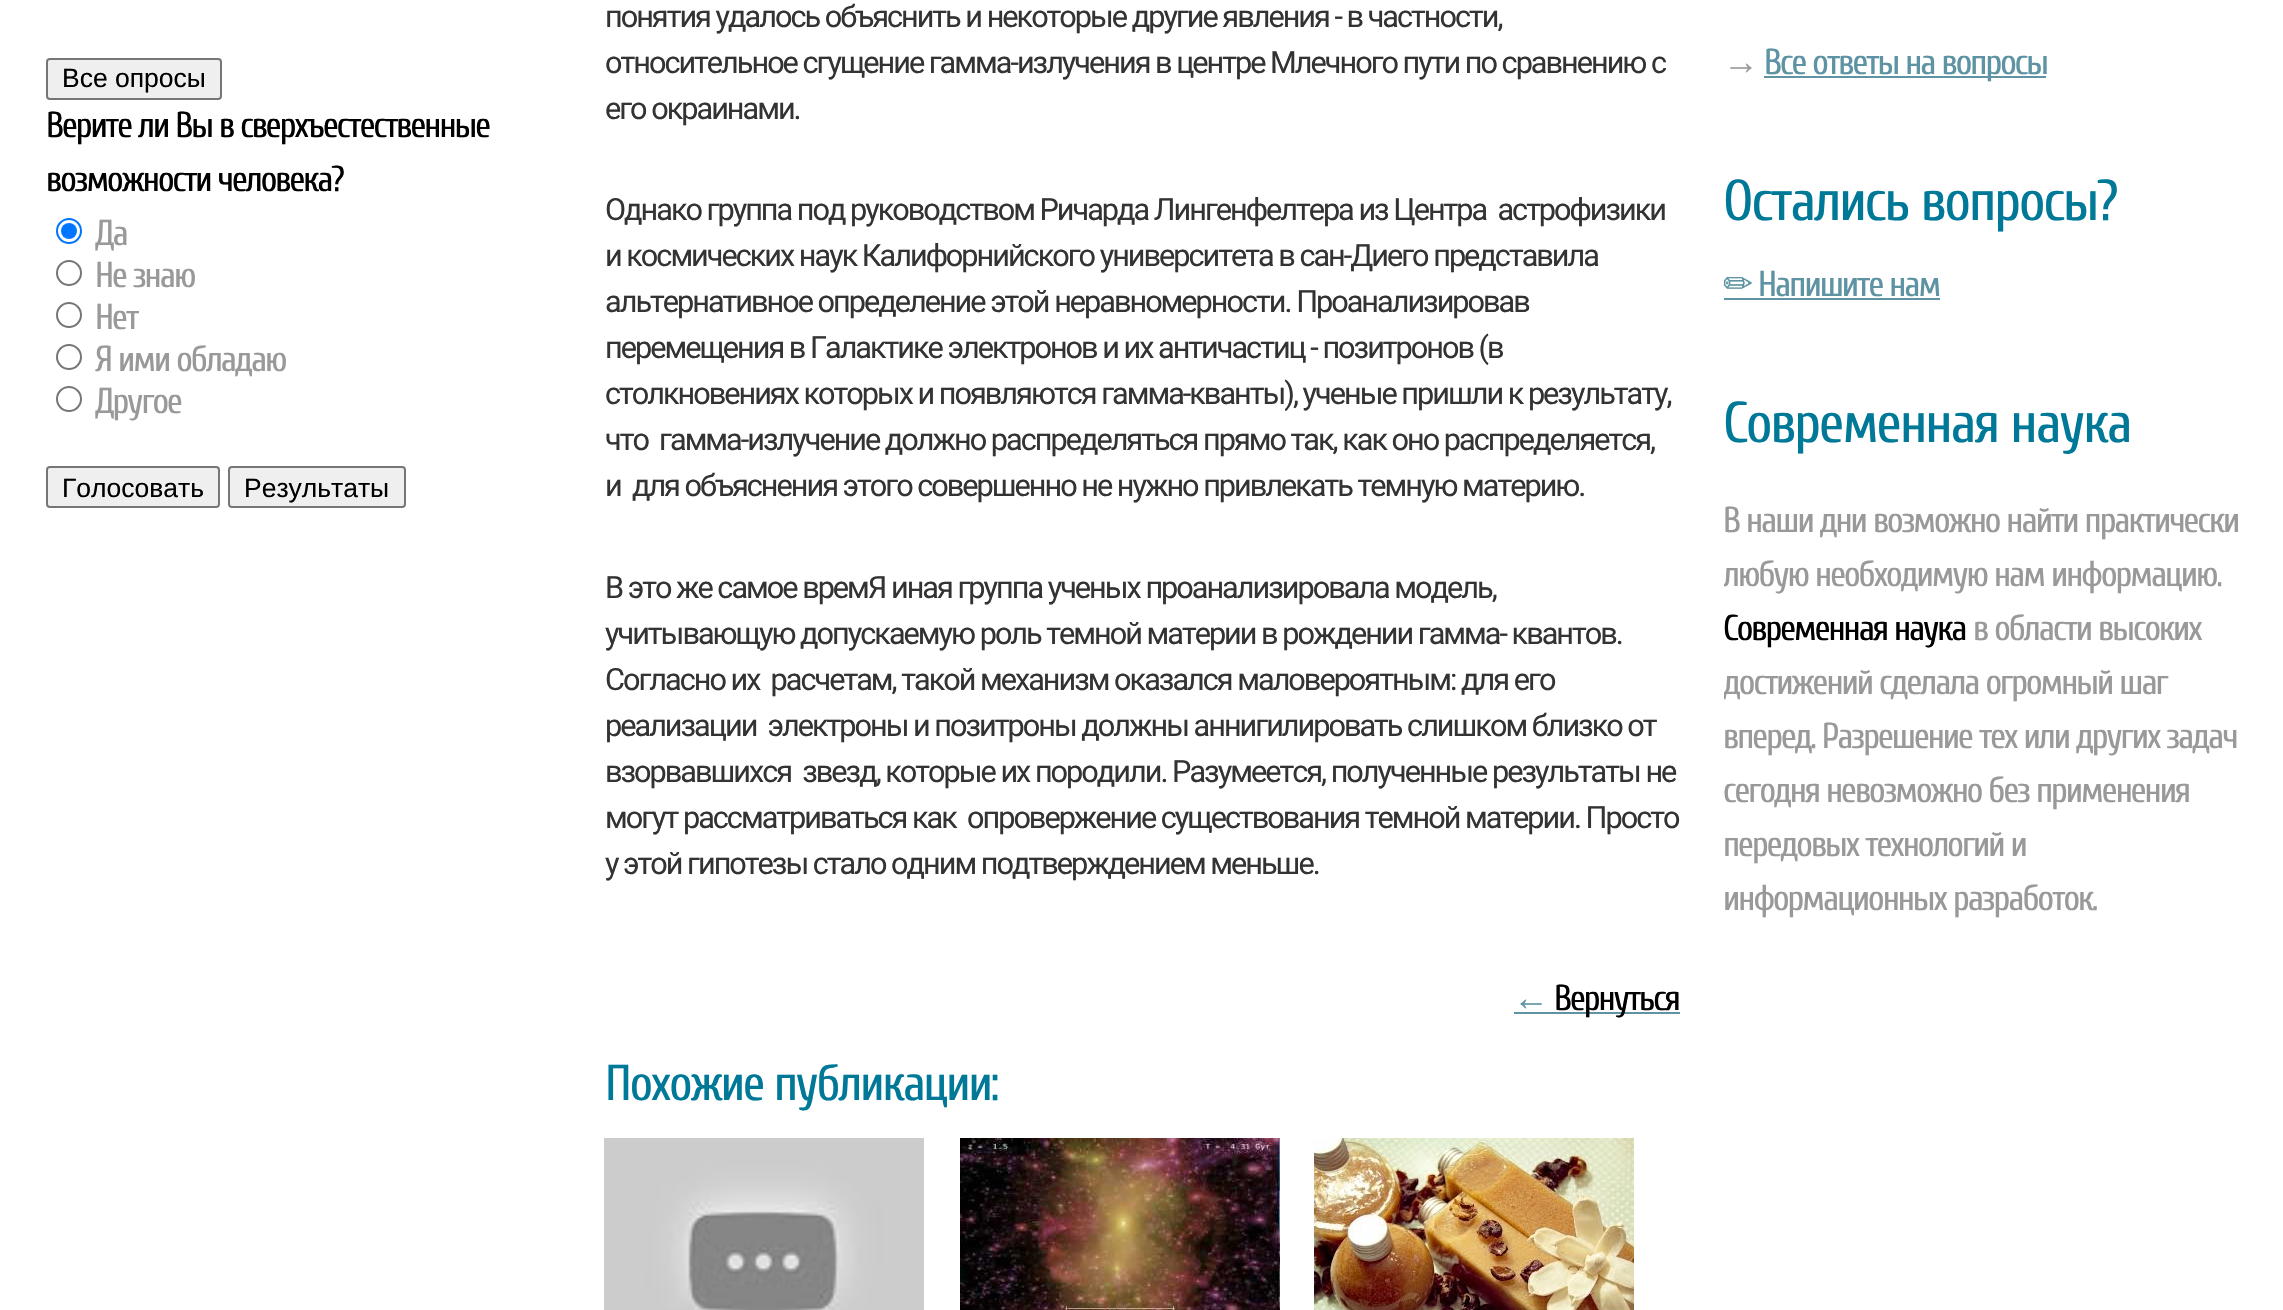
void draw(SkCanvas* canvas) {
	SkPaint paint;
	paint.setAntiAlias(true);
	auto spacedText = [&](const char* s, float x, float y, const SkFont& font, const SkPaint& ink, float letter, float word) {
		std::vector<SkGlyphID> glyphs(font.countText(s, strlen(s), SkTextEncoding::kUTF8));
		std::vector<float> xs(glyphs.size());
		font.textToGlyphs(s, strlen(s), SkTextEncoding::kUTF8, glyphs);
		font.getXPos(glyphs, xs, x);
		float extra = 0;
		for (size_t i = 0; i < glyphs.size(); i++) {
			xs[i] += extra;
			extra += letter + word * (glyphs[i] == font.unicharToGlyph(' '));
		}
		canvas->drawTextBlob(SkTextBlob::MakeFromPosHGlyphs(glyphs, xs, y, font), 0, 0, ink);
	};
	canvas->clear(0xffffffff);
	paint.setColor(0xffefefef);
	canvas->drawRoundRect(SkRect::MakeXYWH(47, 59, 174, 40), 3, 3, paint);
	paint.setStroke(true);
	paint.setStrokeWidth(2);
	paint.setColor(0xff767676);
	canvas->drawRoundRect(SkRect::MakeXYWH(47, 59, 174, 40), 3, 3, paint);
	SkFont f1(fontMgr->matchFamilyStyle("Liberation Sans", SkFontStyle::Normal()), 26.5);
	f1.setSubpixel(true);
	paint.setStroke(false);
	paint.setColor(0xff000000);
	canvas->drawString("Все опросы", 62, 87, f1, paint);
	SkFont f2(fontMgr->matchFamilyStyle("Cuprum", SkFontStyle::Normal()), 36);
	f2.setSubpixel(true);
	spacedText("Верите ли Вы в сверхъестественные", 46, 137, f2, paint, -2, 0);
	spacedText("возможности человека?", 46, 191, f2, paint, -2, 0);
	paint.setStroke(true);
	paint.setColor(0xff0075ff);
	canvas->drawCircle(69, 231, 12, paint);
	paint.setStroke(false);
	canvas->drawCircle(69, 231, 8, paint);
	paint.setColor(0xff999999);
	spacedText("Да", 95, 245, f2, paint, -2, 0);
	paint.setStroke(true);
	paint.setColor(0xff767676);
	canvas->drawCircle(69, 273, 12, paint);
	paint.setStroke(false);
	paint.setColor(0xff999999);
	spacedText("Не знаю", 95, 287, f2, paint, -2, 0);
	paint.setStroke(true);
	paint.setColor(0xff767676);
	canvas->drawCircle(69, 315, 12, paint);
	paint.setStroke(false);
	paint.setColor(0xff999999);
	spacedText("Нет", 95, 329, f2, paint, -2, 0);
	paint.setStroke(true);
	paint.setColor(0xff767676);
	canvas->drawCircle(69, 357, 12, paint);
	paint.setStroke(false);
	paint.setColor(0xff999999);
	spacedText("Я ими обладаю", 95, 371, f2, paint, -2, 0);
	paint.setStroke(true);
	paint.setColor(0xff767676);
	canvas->drawCircle(69, 399, 12, paint);
	paint.setStroke(false);
	paint.setColor(0xff999999);
	spacedText("Другое", 95, 413, f2, paint, -2, 0);
	paint.setColor(0xffefefef);
	canvas->drawRoundRect(SkRect::MakeXYWH(47, 467, 172, 40), 3, 3, paint);
	paint.setStroke(true);
	paint.setColor(0xff767676);
	canvas->drawRoundRect(SkRect::MakeXYWH(47, 467, 172, 40), 3, 3, paint);
	paint.setStroke(false);
	paint.setColor(0xff000000);
	canvas->drawString("Голосовать", 62, 497, f1, paint);
	paint.setColor(0xffefefef);
	canvas->drawRoundRect(SkRect::MakeXYWH(229, 467, 176, 40), 3, 3, paint);
	paint.setStroke(true);
	paint.setColor(0xff767676);
	canvas->drawRoundRect(SkRect::MakeXYWH(229, 467, 176, 40), 3, 3, paint);
	paint.setStroke(false);
	paint.setColor(0xff000000);
	canvas->drawString("Результаты", 244, 497, f1, paint);
	SkFont f3(fontMgr->matchFamilyStyle("Roboto", SkFontStyle::Normal()), 30.65);
	f3.setSubpixel(true);
	paint.setColor(0xff333333);
	spacedText("понятия удалось объяснить и некоторые другие явления - в частности,", 605, 27, f3, paint, -2, 0);
	spacedText("относительное сгущение гамма-излучения в центре Млечного пути по сравнению с", 605, 73, f3, paint, -2, 0);
	spacedText("его окраинами.", 605, 119, f3, paint, -2, 0);
	spacedText("Однако группа под руководством Ричарда Лингенфелтера из Центра  астрофизики", 605, 220, f3, paint, -2, 0);
	spacedText("и космических наук Калифорнийского университета в сан-Диего представила", 605, 266, f3, paint, -2, 0);
	spacedText("альтернативное определение этой неравномерности. Проанализировав", 605, 312, f3, paint, -2, 0);
	spacedText("перемещения в Галактике электронов и их античастиц - позитронов (в", 605, 358, f3, paint, -2, 0);
	spacedText("столкновениях которых и появляются гамма-кванты), ученые пришли к результату,", 605, 404, f3, paint, -2, 0);
	spacedText("что  гамма-излучение должно распределяться прямо так, как оно распределяется,", 605, 450, f3, paint, -2, 0);
	spacedText("и  для объяснения этого совершенно не нужно привлекать темную материю.", 605, 496, f3, paint, -2, 0);
	spacedText("В это же самое времЯ иная группа ученых проанализировала модель,", 605, 598, f3, paint, -2, 0);
	spacedText("учитывающую допускаемую роль темной материи в рождении гамма- квантов.", 605, 644, f3, paint, -2, 0);
	spacedText("Согласно их  расчетам, такой механизм оказался маловероятным: для его", 605, 690, f3, paint, -2, 0);
	spacedText("реализации  электроны и позитроны должны аннигилировать слишком близко от", 605, 736, f3, paint, -2, 0);
	spacedText("взорвавшихся  звезд, которые их породили. Разумеется, полученные результаты не", 605, 782, f3, paint, -2, 0);
	spacedText("могут рассматриваться как  опровержение существования темной материи. Просто", 605, 828, f3, paint, -2, 0);
	spacedText("у этой гипотезы стало одним подтверждением меньше.", 605, 874, f3, paint, -2, 0);
	SkFont f4(fontMgr->matchFamilyStyle("Liberation Serif", SkFontStyle::Normal()), 36);
	f4.setSubpixel(true);
	paint.setColor(0xff5d93a2);
	spacedText("←", 1513, 1010, f4, paint, -2, 0);
	canvas->drawRect(SkRect::MakeXYWH(1514, 1012, 166, 2), paint);
	paint.setColor(0xff000000);
	spacedText("Вернуться", 1554, 1010, f2, paint, -2, 0);
	SkFont f5(fontMgr->matchFamilyStyle("Cuprum", SkFontStyle::Normal()), 50.5);
	f5.setSubpixel(true);
	paint.setColor(0xff007897);
	spacedText("Похожие публикации:", 605, 1100, f5, paint, -2, 0);
	canvas->drawImageRect(SkImages::DeferredFromEncodedData(SkData::MakeFromFileName("img1.png")), SkRect::MakeXYWH(604, 1138, 320, 172), SkSamplingOptions());
	canvas->drawImageRect(SkImages::DeferredFromEncodedData(SkData::MakeFromFileName("img2.png")), SkRect::MakeXYWH(960, 1138, 320, 172), SkSamplingOptions());
	canvas->drawImageRect(SkImages::DeferredFromEncodedData(SkData::MakeFromFileName("img3.png")), SkRect::MakeXYWH(1314, 1138, 320, 172), SkSamplingOptions());
	paint.setColor(0xff999999);
	spacedText("→", 1723, 74, f4, paint, -2, 0);
	paint.setColor(0xff5d93a2);
	canvas->drawRect(SkRect::MakeXYWH(1764, 76, 282, 2), paint);
	spacedText("Все ответы на вопросы", 1764, 74, f2, paint, -2, 0);
	SkFont f6(fontMgr->matchFamilyStyle("Cuprum", SkFontStyle::Normal()), 57.5);
	f6.setSubpixel(true);
	paint.setColor(0xff007897);
	spacedText("Остались вопросы?", 1723, 220, f6, paint, -2, 0);
	SkFont f7(fontMgr->matchFamilyStyle("DejaVu Sans", SkFontStyle::Normal()), 36);
	f7.setSubpixel(true);
	paint.setColor(0xff5d93a2);
	spacedText("✏", 1723, 296, f7, paint, -2, 0);
	spacedText("Напишите нам", 1758, 296, f2, paint, -2, 0);
	canvas->drawRect(SkRect::MakeXYWH(1724, 298, 216, 2), paint);
	paint.setColor(0xff007897);
	spacedText("Современная наука", 1723, 442, f6, paint, -2, 0);
	paint.setColor(0xff999999);
	spacedText("В наши дни возможно найти практически", 1723, 532, f2, paint, -2, 0);
	canvas->save();
	canvas->clipRect(SkRect::MakeXYWH(1724, 494, 514, 432));
	spacedText("любую необходимую нам информацию.", 1723, 586, f2, paint, -2, 0);
	canvas->restore();
	paint.setColor(0xff000000);
	spacedText("Современная наука", 1723, 640, f2, paint, -2, 0);
	paint.setColor(0xff999999);
	spacedText("в области высоких", 1973, 640, f2, paint, -2, 0);
	canvas->save();
	canvas->clipRect(SkRect::MakeXYWH(1724, 494, 514, 432));
	spacedText("достижений сделала огромный шаг", 1723, 694, f2, paint, -2, 0);
	canvas->restore();
	spacedText("вперед. Разрешение тех или других задач", 1723, 748, f2, paint, -2, 0);
	spacedText("сегодня невозможно без применения", 1723, 802, f2, paint, -2, 0);
	spacedText("передовых технологий и", 1723, 856, f2, paint, -2, 0);
	spacedText("информационных разработок.", 1723, 910, f2, paint, -2, 0);
}
